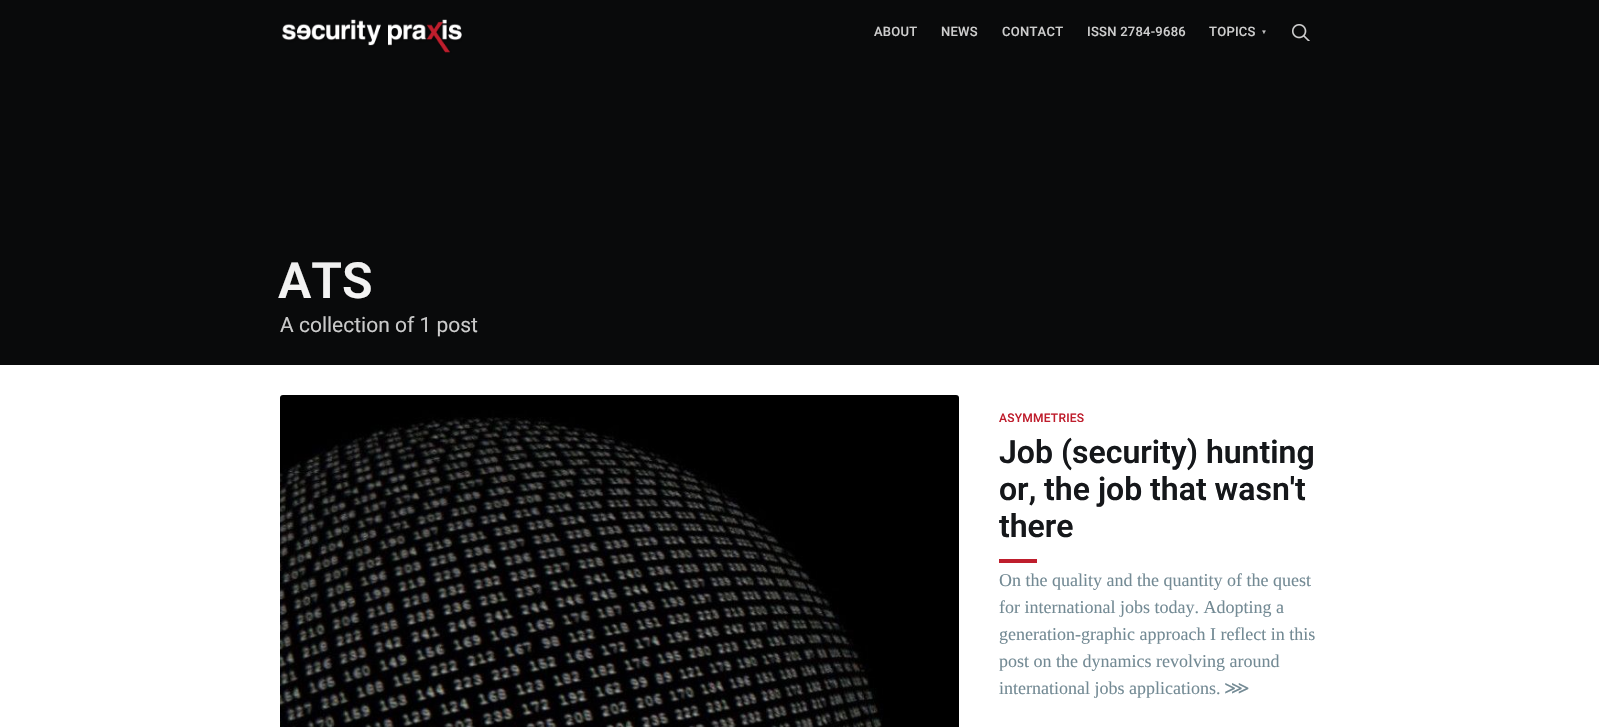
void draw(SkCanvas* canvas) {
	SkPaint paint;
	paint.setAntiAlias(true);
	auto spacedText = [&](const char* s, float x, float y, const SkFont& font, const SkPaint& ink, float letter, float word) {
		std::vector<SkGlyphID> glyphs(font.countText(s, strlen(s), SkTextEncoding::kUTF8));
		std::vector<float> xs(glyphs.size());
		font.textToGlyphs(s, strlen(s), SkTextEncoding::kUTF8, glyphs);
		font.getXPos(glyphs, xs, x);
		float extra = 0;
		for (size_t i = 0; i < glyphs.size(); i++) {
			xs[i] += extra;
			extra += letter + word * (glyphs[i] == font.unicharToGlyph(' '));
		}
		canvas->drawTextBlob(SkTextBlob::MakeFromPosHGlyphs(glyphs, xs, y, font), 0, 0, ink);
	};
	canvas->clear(0xffffffff);
	paint.setColor(0xff090a0b);
	canvas->drawRect(SkRect::MakeXYWH(0, 0, 1599, 365), paint);
	canvas->drawImageRect(SkImages::DeferredFromEncodedData(SkData::MakeFromFileName("img1.png")), SkRect::MakeXYWH(282, 19, 180, 34), SkSamplingOptions());
	SkFont f1(fontMgr->matchFamilyStyle("Roboto", SkFontStyle(500, SkFontStyle::kNormal_Width, SkFontStyle::kUpright_Slant)), 13);
	f1.setSubpixel(true);
	paint.setColor(0xffcecece);
	spacedText("ABOUT", 874, 36, f1, paint, 0.25, 0);
	spacedText("NEWS", 941, 36, f1, paint, 0.25, 0);
	spacedText("CONTACT", 1002, 36, f1, paint, 0.25, 0);
	spacedText("ISSN 2784-9686", 1087, 36, f1, paint, 0.25, 0);
	spacedText("TOPICS", 1209, 36, f1, paint, 0.25, 0);
	SkFont f2(fontMgr->matchFamilyStyle("Liberation Sans", SkFontStyle::Normal()), 6);
	f2.setSubpixel(true);
	paint.setColor(0xffc0c0c1);
	spacedText("▼", 1261, 34, f2, paint, 0.25, 0);
	canvas->drawImageRect(SkImages::DeferredFromEncodedData(SkData::MakeFromFileName("img2.png")), SkRect::MakeXYWH(1292, 24, 18, 17), SkSamplingOptions());
	SkFont f3(fontMgr->matchFamilyStyle("Roboto", SkFontStyle(600, SkFontStyle::kNormal_Width, SkFontStyle::kUpright_Slant)), 50);
	f3.setSubpixel(true);
	paint.setColor(0xffffffff);
	canvas->drawString("ATS", 278, 298, f3, paint);
	SkFont f4(fontMgr->matchFamilyStyle("Roboto", SkFontStyle::Normal()), 21);
	f4.setSubpixel(true);
	paint.setColor(0xffcecece);
	canvas->drawString("A collection of 1 post", 280, 332, f4, paint);
	{
		const SkColor colors[] = {0x2e000000, 0x00000000};
		const float stops[] = {0, 1};
		const SkPoint ends[] = {{800, 64}, {800, 365}};
		paint.setShader(SkGradientShader::MakeLinear(ends, colors, stops, 2, SkTileMode::kClamp));
		paint.setAlpha(255);
	}
	canvas->drawRect(SkRect::MakeXYWH(278, 262, 199, 67), paint);
	canvas->drawImageRect(SkImages::DeferredFromEncodedData(SkData::MakeFromFileName("img3.png")), SkRect::MakeXYWH(280, 395, 679, 332), SkSamplingOptions());
	SkFont f5(fontMgr->matchFamilyStyle("Roboto", SkFontStyle(500, SkFontStyle::kNormal_Width, SkFontStyle::kUpright_Slant)), 12);
	f5.setSubpixel(true);
	paint.setShader(nullptr);
	paint.setColor(0xffbf1e2d);
	spacedText("ASYMMETRIES", 999, 422, f5, paint, 0.25, 0);
	SkFont f6(fontMgr->matchFamilyStyle("Roboto", SkFontStyle(600, SkFontStyle::kNormal_Width, SkFontStyle::kUpright_Slant)), 32);
	f6.setSubpixel(true);
	paint.setColor(0xff15171a);
	canvas->drawString("Job (security) hunting", 999, 463, f6, paint);
	canvas->drawString("or, the job that wasn't", 999, 500, f6, paint);
	canvas->drawString("there", 999, 537, f6, paint);
	paint.setColor(0xffbf1e2d);
	canvas->drawRect(SkRect::MakeXYWH(999, 559, 38, 4), paint);
	SkFont f7(fontMgr->matchFamilyStyle("Liberation Serif", SkFontStyle::Normal()), 18);
	f7.setSubpixel(true);
	paint.setColor(0xff738a94);
	canvas->drawString("On the quality and the quantity of the quest", 999, 586, f7, paint);
	canvas->drawString("for international jobs today. Adopting a", 999, 613, f7, paint);
	canvas->drawString("generation-graphic approach I reflect in this", 999, 640, f7, paint);
	canvas->drawString("post on the dynamics revolving around", 999, 667, f7, paint);
	canvas->drawString("international jobs applications.", 999, 694, f7, paint);
	SkFont f8(fontMgr->matchFamilyStyle("DejaVu Sans", SkFontStyle::Normal()), 18);
	f8.setSubpixel(true);
	canvas->drawString("⋙", 1224, 694, f8, paint);
}
